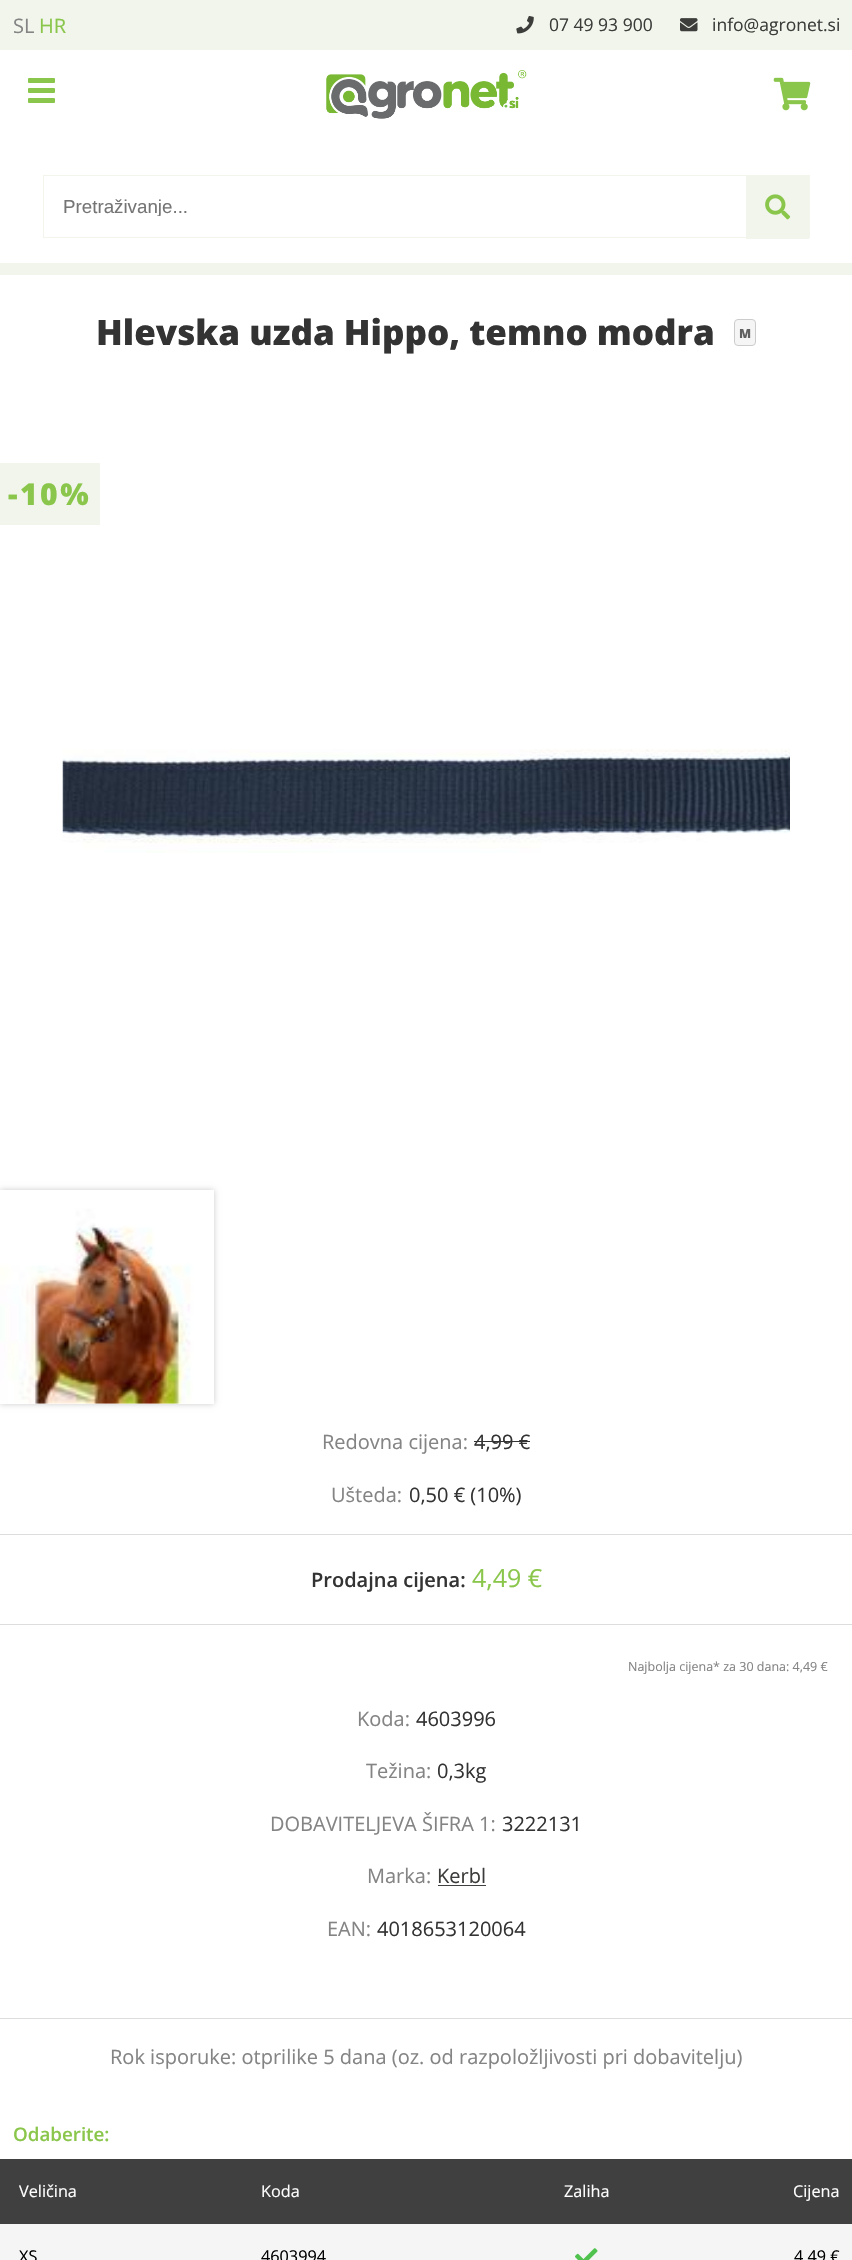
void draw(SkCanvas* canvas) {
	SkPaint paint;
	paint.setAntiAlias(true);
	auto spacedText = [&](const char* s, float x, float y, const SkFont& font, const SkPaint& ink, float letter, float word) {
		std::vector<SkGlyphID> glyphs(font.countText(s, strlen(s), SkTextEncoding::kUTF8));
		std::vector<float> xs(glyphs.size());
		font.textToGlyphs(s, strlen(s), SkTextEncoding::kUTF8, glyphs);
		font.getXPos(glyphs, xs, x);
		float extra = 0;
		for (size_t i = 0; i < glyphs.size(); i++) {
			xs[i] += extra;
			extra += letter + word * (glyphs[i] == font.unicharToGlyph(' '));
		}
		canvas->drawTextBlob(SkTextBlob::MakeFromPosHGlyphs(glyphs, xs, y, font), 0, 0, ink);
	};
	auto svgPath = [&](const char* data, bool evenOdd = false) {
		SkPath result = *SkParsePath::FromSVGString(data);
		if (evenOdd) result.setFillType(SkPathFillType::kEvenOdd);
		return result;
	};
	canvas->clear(0xffffffff);
	paint.setColor(0xfff1f5eb);
	canvas->drawRect(SkRect::MakeXYWH(0, 263, 852, 12), paint);
	canvas->drawRect(SkRect::MakeXYWH(0, 0, 852, 50), paint);
	SkFont f1(fontMgr->matchFamilyStyle("Open Sans", SkFontStyle::Normal()), 20);
	f1.setSubpixel(true);
	paint.setColor(0xff848484);
	canvas->drawString("SL", 13, 33, f1, paint);
	paint.setColor(0xff8ac64b);
	canvas->drawString("HR", 39, 33, f1, paint);
	canvas->drawImageRect(SkImages::DeferredFromEncodedData(SkData::MakeFromFileName("img1.png")), SkRect::MakeXYWH(516, 16, 18, 18), SkSamplingOptions());
	SkFont f2(fontMgr->matchFamilyStyle("Open Sans", SkFontStyle::Normal()), 17.5);
	f2.setSubpixel(true);
	paint.setColor(0xff3c3d3b);
	canvas->drawString("07 49 93 900", 549, 31, f2, paint);
	canvas->drawImageRect(SkImages::DeferredFromEncodedData(SkData::MakeFromFileName("img2.png")), SkRect::MakeXYWH(680, 18, 18, 14), SkSamplingOptions());
	canvas->drawString("info@agronet.si", 712, 31, f2, paint);
	paint.setColor(0xff8ac64b);
	canvas->drawRoundRect(SkRect::MakeXYWH(28, 78, 27, 5), 1, 1, paint);
	canvas->drawRoundRect(SkRect::MakeXYWH(28, 88, 27, 5), 1, 1, paint);
	canvas->drawRoundRect(SkRect::MakeXYWH(28, 98, 27, 5), 1, 1, paint);
	canvas->drawImageRect(SkImages::DeferredFromEncodedData(SkData::MakeFromFileName("img3.png")), SkRect::MakeXYWH(326, 70, 201, 49), SkSamplingOptions());
	canvas->drawImageRect(SkImages::DeferredFromEncodedData(SkData::MakeFromFileName("img4.png")), SkRect::MakeXYWH(773, 77, 38, 34), SkSamplingOptions());
	paint.setStroke(true);
	paint.setStrokeWidth(1);
	paint.setColor(0xfff1f5eb);
	canvas->drawRect(SkRect::MakeXYWH(43.5, 175.5, 766, 62), paint);
	canvas->save();
	canvas->clipRect(SkRect::MakeXYWH(63, 195, 683, 21));
	SkFont f3(fontMgr->matchFamilyStyle("Liberation Sans", SkFontStyle::Normal()), 18.75);
	f3.setSubpixel(true);
	paint.setStroke(false);
	paint.setColor(0xff757575);
	canvas->drawString("Pretraživanje...", 63, 213, f3, paint);
	canvas->restore();
	paint.setColor(0xfff1f5eb);
	canvas->drawRect(SkRect::MakeXYWH(746, 176, 63, 63), paint);
	canvas->drawImageRect(SkImages::DeferredFromEncodedData(SkData::MakeFromFileName("img5.png")), SkRect::MakeXYWH(765, 194, 26, 26), SkSamplingOptions());
	SkFont f4(fontMgr->matchFamilyStyle("Open Sans", SkFontStyle(800, SkFontStyle::kNormal_Width, SkFontStyle::kUpright_Slant)), 35);
	f4.setSubpixel(true);
	paint.setColor(0xff333333);
	canvas->drawString("Hlevska uzda Hippo, temno modra", 96, 345, f4, paint);
	paint.setColor(0xfff5f5f5);
	canvas->drawRoundRect(SkRect::MakeXYWH(734.5, 319.5, 21, 26), 3.5, 3.5, paint);
	paint.setStroke(true);
	paint.setColor(0xffcccccc);
	canvas->drawRoundRect(SkRect::MakeXYWH(734.5, 319.5, 21, 26), 3.5, 3.5, paint);
	SkFont f5(fontMgr->matchFamilyStyle("Open Sans", SkFontStyle(800, SkFontStyle::kNormal_Width, SkFontStyle::kUpright_Slant)), 12.5);
	f5.setSubpixel(true);
	paint.setStroke(false);
	paint.setColor(0xff606060);
	canvas->drawString("M", 739, 338, f5, paint);
	paint.setColor(0xfff1f5eb);
	canvas->drawRect(SkRect::MakeXYWH(0, 463, 100, 62), paint);
	SkFont f6(fontMgr->matchFamilyStyle("Open Sans", SkFontStyle(800, SkFontStyle::kNormal_Width, SkFontStyle::kUpright_Slant)), 30);
	f6.setSubpixel(true);
	paint.setColor(0xff8ac64b);
	spacedText("-10%", 8, 505, f6, paint, 2.5, 0);
	canvas->drawImageRect(SkImages::DeferredFromEncodedData(SkData::MakeFromFileName("img6.png")), SkRect::MakeXYWH(62, 749, 728, 104), SkSamplingOptions());
	canvas->save();
	canvas->clipPath(svgPath("M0 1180H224V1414H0ZM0 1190H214V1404H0Z", true), true);
	paint.setColor(0xffcccccc);
	paint.setMaskFilter(SkMaskFilter::MakeBlur(kNormal_SkBlurStyle, 3));
	canvas->drawRect(SkRect::MakeXYWH(0, 1190, 214, 214), paint);
	paint.setMaskFilter(nullptr);
	canvas->restore();
	canvas->drawImageRect(SkImages::DeferredFromEncodedData(SkData::MakeFromFileName("img7.png")), SkRect::MakeXYWH(0, 1196, 214, 208), SkSamplingOptions());
	paint.setColor(0xff848484);
	canvas->drawString("Redovna cijena:", 322, 1449, f1, paint);
	paint.setColor(0xff333333);
	canvas->drawString("4,99 €", 474, 1449, f1, paint);
	canvas->drawRect(SkRect::MakeXYWH(474, 1441, 56, 1), paint);
	paint.setColor(0xff848484);
	canvas->drawString("Ušteda:", 331, 1502, f1, paint);
	paint.setColor(0xff333333);
	canvas->drawString("0,50 € (10%)", 409, 1502, f1, paint);
	paint.setColor(0xffdddddd);
	canvas->drawRect(SkRect::MakeXYWH(0, 1534, 852, 1), paint);
	canvas->drawRect(SkRect::MakeXYWH(0, 1624, 852, 1), paint);
	SkFont f7(fontMgr->matchFamilyStyle("Open Sans", SkFontStyle(600, SkFontStyle::kNormal_Width, SkFontStyle::kUpright_Slant)), 20);
	f7.setSubpixel(true);
	paint.setColor(0xff333333);
	canvas->drawString("Prodajna cijena:", 311, 1587, f7, paint);
	SkFont f8(fontMgr->matchFamilyStyle("Open Sans", SkFontStyle::Normal()), 25);
	f8.setSubpixel(true);
	paint.setColor(0xff8ac64b);
	canvas->drawString("4,49 €", 472, 1587, f8, paint);
	SkFont f9(fontMgr->matchFamilyStyle("Open Sans", SkFontStyle::Normal()), 12.5);
	f9.setSubpixel(true);
	paint.setColor(0xff848484);
	canvas->drawString("Najbolja cijena* za 30 dana: 4,49 €", 628, 1671, f9, paint);
	canvas->drawString("Koda:", 357, 1726, f1, paint);
	paint.setColor(0xff333333);
	canvas->drawString("4603996", 416, 1726, f1, paint);
	paint.setColor(0xff848484);
	canvas->drawString("Težina:", 366, 1778, f1, paint);
	paint.setColor(0xff333333);
	canvas->drawString("0,3kg", 437, 1778, f1, paint);
	paint.setColor(0xff848484);
	canvas->drawString("DOBAVITELJEVA ŠIFRA 1:", 270, 1831, f1, paint);
	paint.setColor(0xff333333);
	canvas->drawString("3222131", 502, 1831, f1, paint);
	paint.setColor(0xff848484);
	canvas->drawString("Marka:", 367, 1883, f1, paint);
	paint.setColor(0xff3c3d3b);
	canvas->drawString("Kerbl", 437, 1883, f1, paint);
	paint.setColor(0xff404040);
	canvas->drawRect(SkRect::MakeXYWH(438, 1885, 48, 1), paint);
	paint.setColor(0xff848484);
	canvas->drawString("EAN:", 327, 1936, f1, paint);
	paint.setColor(0xff333333);
	canvas->drawString("4018653120064", 377, 1936, f1, paint);
	paint.setColor(0xffdddddd);
	canvas->drawRect(SkRect::MakeXYWH(0, 2018, 852, 1), paint);
	paint.setColor(0xff848484);
	canvas->drawString("Rok isporuke: otprilike 5 dana (oz. od razpoložljivosti pri dobavitelju)", 110, 2064, f1, paint);
	paint.setColor(0xfff5f5f5);
	canvas->drawRect(SkRect::MakeXYWH(0, 2224, 852, 36), paint);
	SkFont f10(fontMgr->matchFamilyStyle("Open Sans", SkFontStyle(600, SkFontStyle::kNormal_Width, SkFontStyle::kUpright_Slant)), 18.75);
	f10.setSubpixel(true);
	paint.setColor(0xff8ac64b);
	canvas->drawString("Odaberite:", 13, 2141, f10, paint);
	paint.setColor(0xff404040);
	canvas->drawRect(SkRect::MakeXYWH(0, 2159, 852, 65), paint);
	SkFont f11(fontMgr->matchFamilyStyle("Open Sans", SkFontStyle::Normal()), 16.25);
	f11.setSubpixel(true);
	paint.setColor(0xffffffff);
	canvas->drawString("Veličina", 19, 2197, f11, paint);
	canvas->drawString("Koda", 261, 2197, f11, paint);
	canvas->drawString("Zaliha", 564, 2197, f11, paint);
	canvas->drawString("Cijena", 793, 2197, f11, paint);
	paint.setColor(0xff000000);
	canvas->drawString("XS", 19, 2262, f11, paint);
	canvas->drawString("4603994", 261, 2262, f11, paint);
	canvas->drawImageRect(SkImages::DeferredFromEncodedData(SkData::MakeFromFileName("img8.png")), SkRect::MakeXYWH(575, 2248, 23, 12), SkSamplingOptions());
	canvas->drawString("4,49 €", 794, 2262, f11, paint);
}
